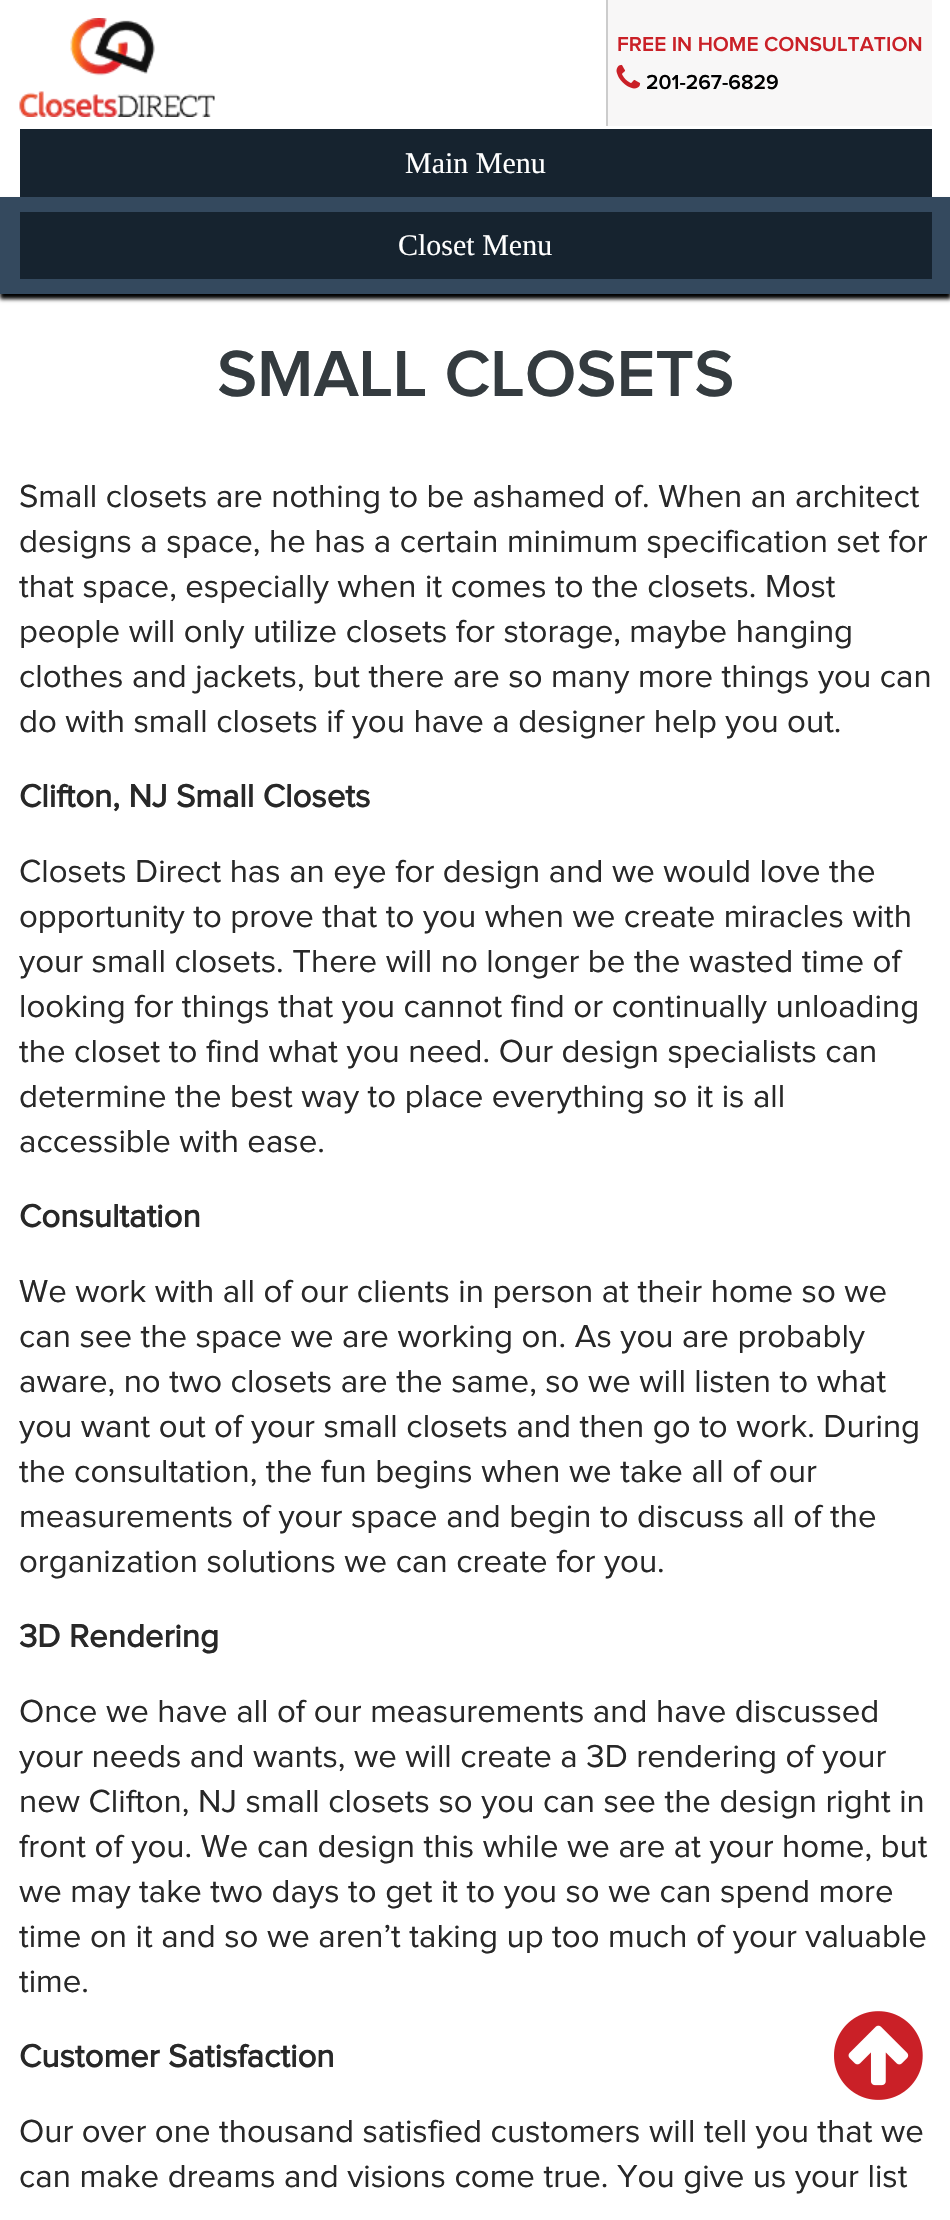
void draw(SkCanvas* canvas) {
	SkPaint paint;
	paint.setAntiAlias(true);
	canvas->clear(0xffffffff);
	paint.setColor(0xfff8f7f7);
	canvas->drawRect(SkRect::MakeXYWH(608, 0, 324, 126), paint);
	paint.setColor(0xffcccccc);
	canvas->drawRect(SkRect::MakeXYWH(606, 0, 2, 126), paint);
	SkFont f1(fontMgr->matchFamilyStyle("Proxima Nova", SkFontStyle(600, SkFontStyle::kNormal_Width, SkFontStyle::kUpright_Slant)), 21);
	f1.setSubpixel(true);
	paint.setColor(0xffca2027);
	canvas->drawString("FREE IN HOME CONSULTATION", 617, 51, f1, paint);
	canvas->drawImageRect(SkImages::DeferredFromEncodedData(SkData::MakeFromFileName("img1.png")), SkRect::MakeXYWH(616, 64, 25, 25), SkSamplingOptions());
	paint.setColor(0xff000000);
	canvas->drawString("201-267-6829", 646, 89, f1, paint);
	canvas->drawImageRect(SkImages::DeferredFromEncodedData(SkData::MakeFromFileName("img2.png")), SkRect::MakeXYWH(19, 18, 196, 99), SkSamplingOptions());
	paint.setColor(0xff16232f);
	canvas->drawRect(SkRect::MakeXYWH(20, 129, 912, 68), paint);
	SkFont f2(fontMgr->matchFamilyStyle("Liberation Serif", SkFontStyle::Normal()), 30);
	f2.setSubpixel(true);
	paint.setColor(0xffffffff);
	canvas->drawString("Main Menu", 405, 173, f2, paint);
	paint.setColor(0xff000000);
	paint.setMaskFilter(SkMaskFilter::MakeBlur(kNormal_SkBlurStyle, 2));
	canvas->drawRect(SkRect::MakeXYWH(0, 201, 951, 98), paint);
	paint.setMaskFilter(nullptr);
	paint.setColor(0xff34495e);
	canvas->drawRect(SkRect::MakeXYWH(0, 197, 950, 97), paint);
	paint.setColor(0xff16232f);
	canvas->drawRect(SkRect::MakeXYWH(20, 212, 912, 67), paint);
	paint.setColor(0xffffffff);
	canvas->drawString("Closet Menu", 398, 255, f2, paint);
	SkFont f3(fontMgr->matchFamilyStyle("Proxima Nova", SkFontStyle(600, SkFontStyle::kNormal_Width, SkFontStyle::kUpright_Slant)), 67.5);
	f3.setSubpixel(true);
	paint.setColor(0xff343b3f);
	canvas->drawString("SMALL CLOSETS", 217, 396, f3, paint);
	SkFont f4(fontMgr->matchFamilyStyle("Proxima Nova", SkFontStyle::Normal()), 33);
	f4.setSubpixel(true);
	paint.setColor(0xff282828);
	canvas->drawString("Small closets are nothing to be ashamed of. When an architect", 19, 507, f4, paint);
	canvas->drawString("designs a space, he has a certain minimum specification set for", 19, 552, f4, paint);
	canvas->drawString("that space, especially when it comes to the closets. Most", 19, 597, f4, paint);
	canvas->drawString("people will only utilize closets for storage, maybe hanging", 19, 642, f4, paint);
	canvas->drawString("clothes and jackets, but there are so many more things you can", 19, 687, f4, paint);
	canvas->drawString("do with small closets if you have a designer help you out.", 19, 732, f4, paint);
	SkFont f5(fontMgr->matchFamilyStyle("Proxima Nova", SkFontStyle::Bold()), 33);
	f5.setSubpixel(true);
	canvas->drawString("Clifton, NJ Small Closets", 19, 807, f5, paint);
	canvas->drawString("Closets Direct has an eye for design and we would love the", 19, 882, f4, paint);
	canvas->drawString("opportunity to prove that to you when we create miracles with", 19, 927, f4, paint);
	canvas->drawString("your small closets. There will no longer be the wasted time of", 19, 972, f4, paint);
	canvas->drawString("looking for things that you cannot find or continually unloading", 19, 1017, f4, paint);
	canvas->drawString("the closet to find what you need. Our design specialists can", 19, 1062, f4, paint);
	canvas->drawString("determine the best way to place everything so it is all", 19, 1107, f4, paint);
	canvas->drawString("accessible with ease.", 19, 1152, f4, paint);
	canvas->drawString("Consultation", 19, 1227, f5, paint);
	canvas->drawString("We work with all of our clients in person at their home so we", 19, 1302, f4, paint);
	canvas->drawString("can see the space we are working on. As you are probably", 19, 1347, f4, paint);
	canvas->drawString("aware, no two closets are the same, so we will listen to what", 19, 1392, f4, paint);
	canvas->drawString("you want out of your small closets and then go to work. During", 19, 1437, f4, paint);
	canvas->drawString("the consultation, the fun begins when we take all of our", 19, 1482, f4, paint);
	canvas->drawString("measurements of your space and begin to discuss all of the", 19, 1527, f4, paint);
	canvas->drawString("organization solutions we can create for you.", 19, 1572, f4, paint);
	canvas->drawString("3D Rendering", 19, 1647, f5, paint);
	canvas->drawString("Once we have all of our measurements and have discussed", 19, 1722, f4, paint);
	canvas->drawString("your needs and wants, we will create a 3D rendering of your", 19, 1767, f4, paint);
	canvas->drawString("new Clifton, NJ small closets so you can see the design right in", 19, 1812, f4, paint);
	canvas->drawString("front of you. We can design this while we are at your home, but", 19, 1857, f4, paint);
	canvas->drawString("we may take two days to get it to you so we can spend more", 19, 1902, f4, paint);
	canvas->drawString("time on it and so we aren’t taking up too much of your valuable", 19, 1947, f4, paint);
	canvas->drawString("time.", 19, 1992, f4, paint);
	canvas->drawString("Customer Satisfaction", 19, 2067, f5, paint);
	canvas->drawString("Our over one thousand satisfied customers will tell you that we", 19, 2142, f4, paint);
	canvas->drawString("can make dreams and visions come true. You give us your list", 19, 2187, f4, paint);
	canvas->drawImageRect(SkImages::DeferredFromEncodedData(SkData::MakeFromFileName("img3.png")), SkRect::MakeXYWH(834, 2011, 89, 89), SkSamplingOptions());
}
